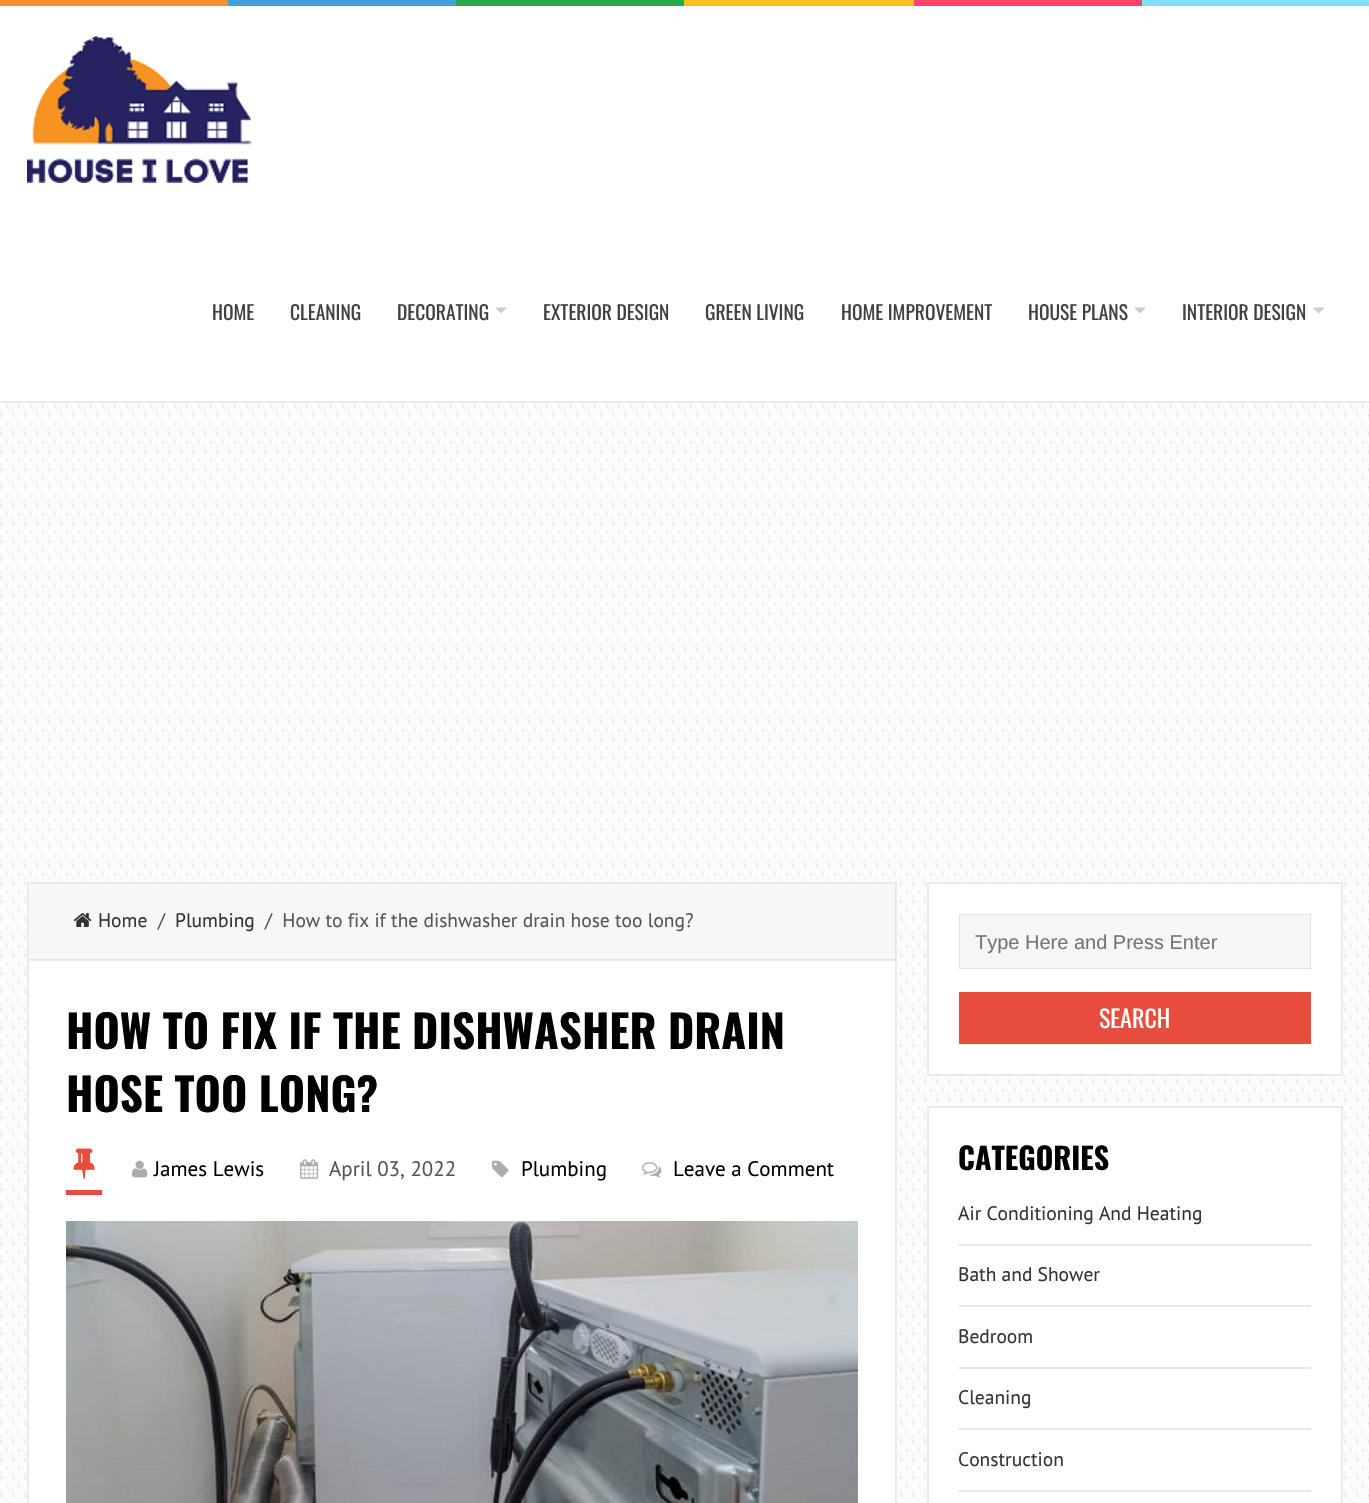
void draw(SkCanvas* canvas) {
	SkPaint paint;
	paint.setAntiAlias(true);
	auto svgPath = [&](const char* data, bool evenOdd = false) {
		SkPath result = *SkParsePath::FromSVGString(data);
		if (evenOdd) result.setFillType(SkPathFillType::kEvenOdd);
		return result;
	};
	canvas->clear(0xffffffff);
	canvas->drawImageRect(SkImages::DeferredFromEncodedData(SkData::MakeFromFileName("img1.png")), SkRect::MakeXYWH(0, 402, 1369, 1101), SkSamplingOptions());
	paint.setColor(0x14000000);
	canvas->drawRect(SkRect::MakeXYWH(0, 401, 1369, 2), paint);
	paint.setColor(0xfffc8c2c);
	canvas->drawRect(SkRect::MakeXYWH(0, 0, 228, 6), paint);
	paint.setColor(0xff3fa1d3);
	canvas->drawRect(SkRect::MakeXYWH(228, 0, 228, 6), paint);
	paint.setColor(0xff27aa4d);
	canvas->drawRect(SkRect::MakeXYWH(456, 0, 228, 6), paint);
	paint.setColor(0xffffc21d);
	canvas->drawRect(SkRect::MakeXYWH(684, 0, 230, 6), paint);
	paint.setColor(0xffff426e);
	canvas->drawRect(SkRect::MakeXYWH(914, 0, 228, 6), paint);
	paint.setColor(0xff86deff);
	canvas->drawRect(SkRect::MakeXYWH(1142, 0, 227, 6), paint);
	canvas->drawImageRect(SkImages::DeferredFromEncodedData(SkData::MakeFromFileName("img2.png")), SkRect::MakeXYWH(27, 36, 225, 147), SkSamplingOptions());
	SkFont f1(fontMgr->matchFamilyStyle("Oswald", SkFontStyle::Normal()), 19.5);
	f1.setSubpixel(true);
	paint.setColor(0xff404040);
	canvas->drawString("HOME", 212, 320, f1, paint);
	canvas->drawString("CLEANING", 290, 320, f1, paint);
	canvas->drawString("DECORATING", 397, 320, f1, paint);
	paint.setColor(0xffcccccc);
	canvas->drawPath(svgPath("M495 307.5H507L501 313.5Z"), paint);
	paint.setColor(0xff404040);
	canvas->drawString("EXTERIOR DESIGN", 543, 320, f1, paint);
	canvas->drawString("GREEN LIVING", 705, 320, f1, paint);
	canvas->drawString("HOME IMPROVEMENT", 841, 320, f1, paint);
	canvas->drawString("HOUSE PLANS", 1028, 320, f1, paint);
	paint.setColor(0xffcccccc);
	canvas->drawPath(svgPath("M1134 307.5H1146L1140 313.5Z"), paint);
	paint.setColor(0xff404040);
	canvas->drawString("INTERIOR DESIGN", 1182, 320, f1, paint);
	paint.setColor(0xffcccccc);
	canvas->drawPath(svgPath("M1312.5 307.5H1324.5L1318.5 313.5Z"), paint);
	paint.setColor(0xffffffff);
	canvas->drawRect(SkRect::MakeXYWH(28, 883, 868, 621), paint);
	paint.setStroke(true);
	paint.setStrokeWidth(2);
	paint.setColor(0xffebebeb);
	canvas->drawRect(SkRect::MakeXYWH(28, 883, 868, 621), paint);
	paint.setStroke(false);
	paint.setColor(0x08000000);
	canvas->drawRect(SkRect::MakeXYWH(29, 884, 867, 76), paint);
	paint.setColor(0x14000000);
	canvas->drawRect(SkRect::MakeXYWH(29, 959, 867, 2), paint);
	canvas->drawImageRect(SkImages::DeferredFromEncodedData(SkData::MakeFromFileName("img3.png")), SkRect::MakeXYWH(73, 913, 19, 14), SkSamplingOptions());
	SkFont f2(fontMgr->matchFamilyStyle("PT Sans", SkFontStyle::Normal()), 19.5);
	f2.setSubpixel(true);
	paint.setColor(0xff333333);
	canvas->drawString("Home", 98, 927, f2, paint);
	paint.setColor(0xff555555);
	canvas->drawString("/", 158, 927, f2, paint);
	paint.setColor(0xff333333);
	canvas->drawString("Plumbing", 175, 927, f2, paint);
	paint.setColor(0xff555555);
	canvas->drawString("/  How to fix if the dishwasher drain hose too long?", 265, 927, f2, paint);
	SkFont f3(fontMgr->matchFamilyStyle("Oswald", SkFontStyle::Bold()), 45);
	f3.setSubpixel(true);
	paint.setColor(0xff000000);
	canvas->drawString("HOW TO FIX IF THE DISHWASHER DRAIN", 66, 1049, f3, paint);
	canvas->drawString("HOSE TOO LONG?", 66, 1112, f3, paint);
	paint.setColor(0xffe74c3c);
	canvas->drawRect(SkRect::MakeXYWH(66, 1190, 36, 5), paint);
	canvas->drawImageRect(SkImages::DeferredFromEncodedData(SkData::MakeFromFileName("img4.png")), SkRect::MakeXYWH(73, 1148, 22, 32), SkSamplingOptions());
	canvas->drawImageRect(SkImages::DeferredFromEncodedData(SkData::MakeFromFileName("img5.png")), SkRect::MakeXYWH(132, 1160, 16, 18), SkSamplingOptions());
	SkFont f4(fontMgr->matchFamilyStyle("PT Sans", SkFontStyle::Normal()), 21);
	f4.setSubpixel(true);
	paint.setColor(0xff000000);
	canvas->drawString("James Lewis", 154, 1176, f4, paint);
	canvas->drawImageRect(SkImages::DeferredFromEncodedData(SkData::MakeFromFileName("img6.png")), SkRect::MakeXYWH(300, 1159, 19, 20), SkSamplingOptions());
	paint.setColor(0xff555555);
	canvas->drawString("April 03, 2022", 329, 1176, f4, paint);
	canvas->drawImageRect(SkImages::DeferredFromEncodedData(SkData::MakeFromFileName("img7.png")), SkRect::MakeXYWH(492, 1160, 17, 18), SkSamplingOptions());
	paint.setColor(0xff000000);
	canvas->drawString("Plumbing", 521, 1176, f4, paint);
	canvas->drawImageRect(SkImages::DeferredFromEncodedData(SkData::MakeFromFileName("img8.png")), SkRect::MakeXYWH(642, 1162, 20, 16), SkSamplingOptions());
	canvas->drawString("Leave a Comment", 673, 1176, f4, paint);
	canvas->drawImageRect(SkImages::DeferredFromEncodedData(SkData::MakeFromFileName("img9.png")), SkRect::MakeXYWH(66, 1221, 792, 282), SkSamplingOptions());
	paint.setColor(0xffffffff);
	canvas->drawRect(SkRect::MakeXYWH(928, 883, 414, 192), paint);
	paint.setStroke(true);
	paint.setColor(0xffebebeb);
	canvas->drawRect(SkRect::MakeXYWH(928, 883, 414, 192), paint);
	paint.setColor(0xffe3e3e3);
	canvas->drawRect(SkRect::MakeXYWH(960, 915, 350, 53), paint);
	paint.setStroke(false);
	paint.setColor(0xfff6f6f6);
	canvas->drawRect(SkRect::MakeXYWH(960, 915, 350, 53), paint);
	SkFont f5(fontMgr->matchFamilyStyle("Liberation Sans", SkFontStyle::Normal()), 20);
	f5.setSubpixel(true);
	paint.setColor(0xff757575);
	canvas->drawString("Type Here and Press Enter", 975, 949, f5, paint);
	paint.setColor(0xffe74c3c);
	canvas->drawRect(SkRect::MakeXYWH(959, 992, 352, 52), paint);
	SkFont f6(fontMgr->matchFamilyStyle("Oswald", SkFontStyle::Normal()), 24);
	f6.setSubpixel(true);
	paint.setColor(0xffffffff);
	canvas->drawString("SEARCH", 1099, 1028, f6, paint);
	canvas->drawRect(SkRect::MakeXYWH(928, 1107, 414, 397), paint);
	paint.setStroke(true);
	paint.setColor(0xffebebeb);
	canvas->drawRect(SkRect::MakeXYWH(928, 1107, 414, 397), paint);
	SkFont f7(fontMgr->matchFamilyStyle("Oswald", SkFontStyle::Bold()), 30);
	f7.setSubpixel(true);
	paint.setStroke(false);
	paint.setColor(0xff000000);
	canvas->drawString("CATEGORIES", 958, 1170, f7, paint);
	paint.setColor(0xffe6e6e6);
	canvas->drawRect(SkRect::MakeXYWH(959, 1244, 352, 2), paint);
	paint.setColor(0xff333333);
	canvas->drawString("Air Conditioning And Heating", 958, 1220, f2, paint);
	paint.setColor(0xffe6e6e6);
	canvas->drawRect(SkRect::MakeXYWH(959, 1305, 352, 2), paint);
	paint.setColor(0xff333333);
	canvas->drawString("Bath and Shower", 958, 1281, f2, paint);
	paint.setColor(0xffe6e6e6);
	canvas->drawRect(SkRect::MakeXYWH(959, 1367, 352, 2), paint);
	paint.setColor(0xff333333);
	canvas->drawString("Bedroom", 958, 1343, f2, paint);
	paint.setColor(0xffe6e6e6);
	canvas->drawRect(SkRect::MakeXYWH(959, 1428, 352, 2), paint);
	paint.setColor(0xff333333);
	canvas->drawString("Cleaning", 958, 1404, f2, paint);
	paint.setColor(0xffe6e6e6);
	canvas->drawRect(SkRect::MakeXYWH(959, 1490, 352, 2), paint);
	paint.setColor(0xff333333);
	canvas->drawString("Construction", 958, 1466, f2, paint);
}
